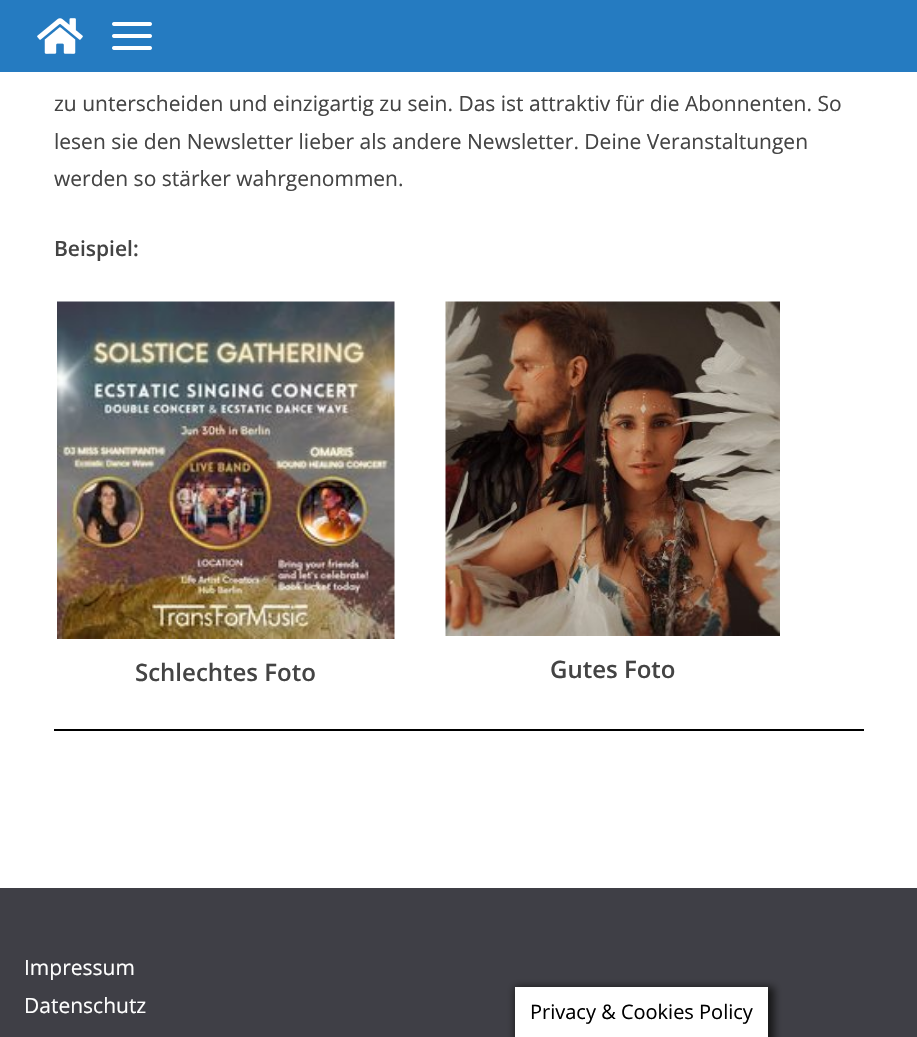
void draw(SkCanvas* canvas) {
	SkPaint paint;
	paint.setAntiAlias(true);
	canvas->clear(0xffffffff);
	paint.setColor(0xff257bc1);
	canvas->drawRect(SkRect::MakeXYWH(0, 0, 917, 72), paint);
	canvas->drawImageRect(SkImages::DeferredFromEncodedData(SkData::MakeFromFileName("img1.png")), SkRect::MakeXYWH(37, 18, 46, 36), SkSamplingOptions());
	canvas->drawImageRect(SkImages::DeferredFromEncodedData(SkData::MakeFromFileName("img2.png")), SkRect::MakeXYWH(112, 22, 40, 28), SkSamplingOptions());
	SkFont f1(fontMgr->matchFamilyStyle("Open Sans", SkFontStyle::Normal()), 21);
	f1.setSubpixel(true);
	paint.setColor(0xff444444);
	canvas->drawString("zu unterscheiden und einzigartig zu sein. Das ist attraktiv für die Abonnenten. So", 54, 111, f1, paint);
	canvas->drawString("lesen sie den Newsletter lieber als andere Newsletter. Deine Veranstaltungen", 54, 149, f1, paint);
	canvas->drawString("werden so stärker wahrgenommen.", 54, 186, f1, paint);
	SkFont f2(fontMgr->matchFamilyStyle("Open Sans", SkFontStyle(600, SkFontStyle::kNormal_Width, SkFontStyle::kUpright_Slant)), 21);
	f2.setSubpixel(true);
	canvas->drawString("Beispiel:", 54, 256, f2, paint);
	canvas->drawImageRect(SkImages::DeferredFromEncodedData(SkData::MakeFromFileName("img3.png")), SkRect::MakeXYWH(57, 301, 338, 338), SkSamplingOptions());
	SkFont f3(fontMgr->matchFamilyStyle("Open Sans", SkFontStyle(600, SkFontStyle::kNormal_Width, SkFontStyle::kUpright_Slant)), 24);
	f3.setSubpixel(true);
	canvas->drawString("Schlechtes Foto", 135, 681, f3, paint);
	canvas->drawImageRect(SkImages::DeferredFromEncodedData(SkData::MakeFromFileName("img4.png")), SkRect::MakeXYWH(445, 301, 335, 335), SkSamplingOptions());
	canvas->drawString("Gutes Foto", 550, 678, f3, paint);
	paint.setColor(0xff000000);
	canvas->drawRect(SkRect::MakeXYWH(54, 729, 810, 2), paint);
	paint.setColor(0xff3f3f46);
	canvas->drawRect(SkRect::MakeXYWH(0, 888, 917, 149), paint);
	paint.setColor(0xffffffff);
	canvas->drawString("Impressum", 24, 975, f1, paint);
	canvas->drawString("Datenschutz", 24, 1013, f1, paint);
	paint.setColor(0xff161616);
	paint.setMaskFilter(SkMaskFilter::MakeBlur(kNormal_SkBlurStyle, 4));
	canvas->drawRect(SkRect::MakeXYWH(515, 987, 259, 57), paint);
	paint.setMaskFilter(nullptr);
	paint.setColor(0xffffffff);
	canvas->drawRect(SkRect::MakeXYWH(515, 987, 253, 50), paint);
	SkFont f4(fontMgr->matchFamilyStyle("Open Sans", SkFontStyle::Normal()), 20);
	f4.setSubpixel(true);
	paint.setColor(0xff000000);
	canvas->drawString("Privacy & Cookies Policy", 530, 1019, f4, paint);
}
